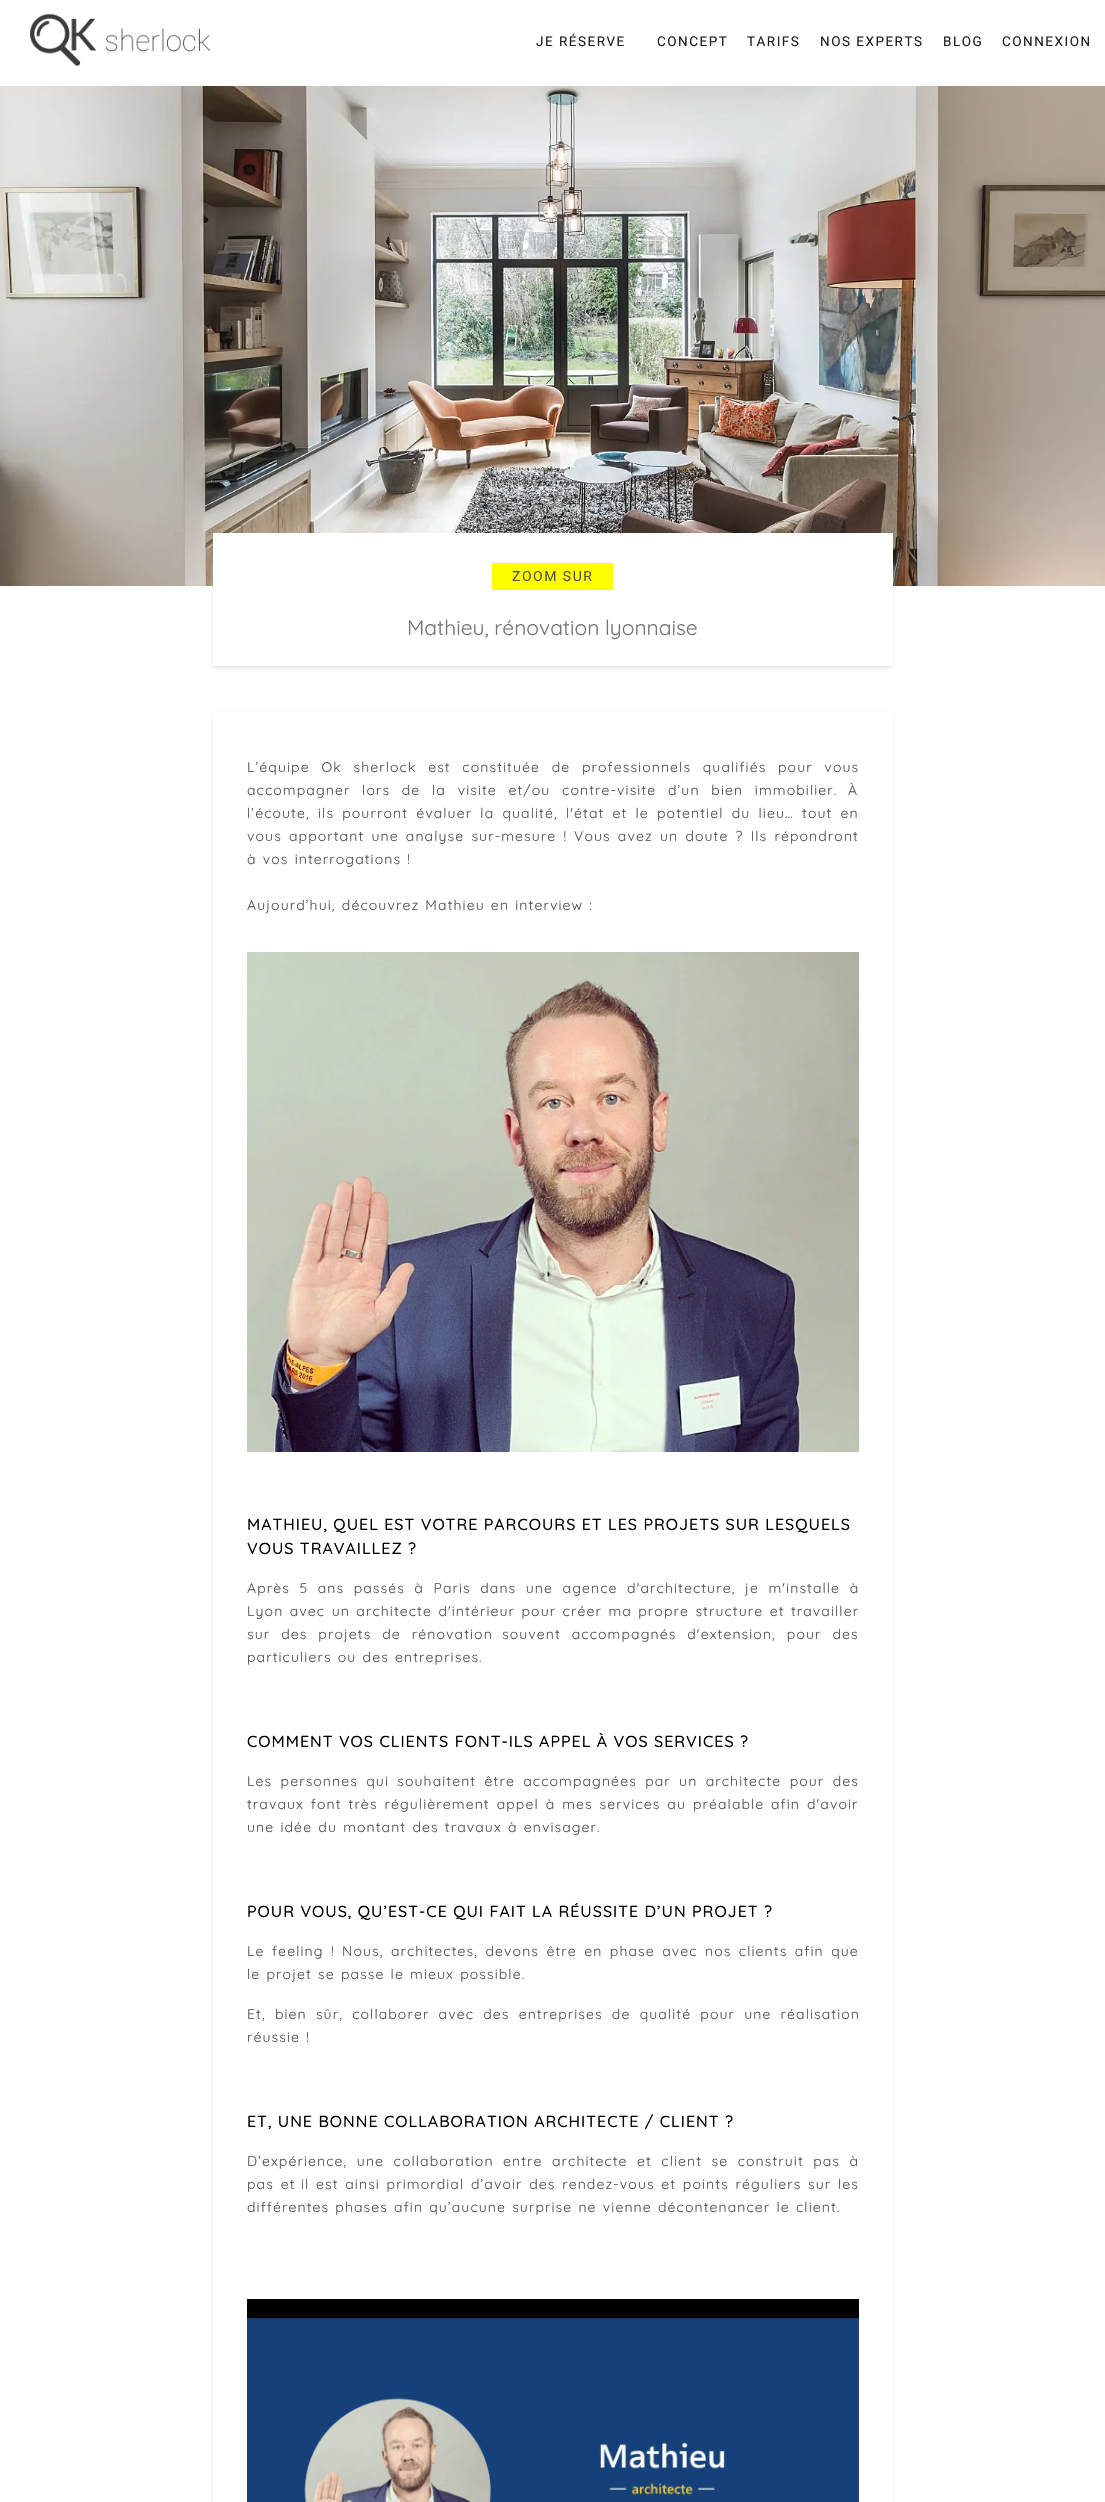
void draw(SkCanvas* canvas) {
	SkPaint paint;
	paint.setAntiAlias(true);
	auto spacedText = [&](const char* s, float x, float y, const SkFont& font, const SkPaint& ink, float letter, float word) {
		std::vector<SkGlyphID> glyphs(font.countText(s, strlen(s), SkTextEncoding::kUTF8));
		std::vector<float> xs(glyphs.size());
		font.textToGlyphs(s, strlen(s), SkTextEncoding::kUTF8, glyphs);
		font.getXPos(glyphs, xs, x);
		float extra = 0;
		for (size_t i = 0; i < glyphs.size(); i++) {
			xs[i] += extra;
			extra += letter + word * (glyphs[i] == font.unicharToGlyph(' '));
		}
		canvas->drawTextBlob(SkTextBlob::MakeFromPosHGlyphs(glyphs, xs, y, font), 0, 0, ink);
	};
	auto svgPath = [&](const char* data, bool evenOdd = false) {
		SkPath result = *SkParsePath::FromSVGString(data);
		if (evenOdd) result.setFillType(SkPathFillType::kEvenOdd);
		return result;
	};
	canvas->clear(0xffffffff);
	canvas->drawImageRect(SkImages::DeferredFromEncodedData(SkData::MakeFromFileName("img1.png")), SkRect::MakeXYWH(30, 13, 181, 53), SkSamplingOptions());
	SkFont f1(fontMgr->matchFamilyStyle("Roboto", SkFontStyle::Normal()), 13.5);
	f1.setSubpixel(true);
	paint.setColor(0xff1f1f1f);
	spacedText("JE RÉSERVE", 536, 46, f1, paint, 1.5, 0);
	spacedText("CONCEPT", 657, 46, f1, paint, 1.5, 0);
	spacedText("TARIFS", 747, 46, f1, paint, 1.5, 0);
	spacedText("NOS EXPERTS", 820, 46, f1, paint, 1.5, 0);
	spacedText("BLOG", 943, 46, f1, paint, 1.5, 0);
	spacedText("CONNEXION", 1002, 46, f1, paint, 1.5, 0);
	canvas->drawImageRect(SkImages::DeferredFromEncodedData(SkData::MakeFromFileName("img2.png")), SkRect::MakeXYWH(0, 86, 1105, 500), SkSamplingOptions());
	paint.setColor(0xffffffff);
	canvas->drawRect(SkRect::MakeXYWH(213, 533, 680, 53), paint);
	canvas->save();
	canvas->clipPath(svgPath("M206 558H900V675H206ZM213 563H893V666H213Z", true), true);
	paint.setColor(0x80cdcccc);
	paint.setMaskFilter(SkMaskFilter::MakeBlur(kNormal_SkBlurStyle, 2));
	canvas->drawRect(SkRect::MakeXYWH(213, 565, 680, 103), paint);
	paint.setMaskFilter(nullptr);
	canvas->restore();
	paint.setColor(0xffffff00);
	canvas->drawRect(SkRect::MakeXYWH(492, 563, 121, 27), paint);
	SkFont f2(fontMgr->matchFamilyStyle("Roboto", SkFontStyle::Normal()), 14);
	f2.setSubpixel(true);
	paint.setColor(0xff525252);
	spacedText("ZOOM SUR", 512, 581, f2, paint, 1.5, 0);
	SkFont f3(fontMgr->matchFamilyStyle("Quicksand", SkFontStyle::Normal()), 21);
	f3.setSubpixel(true);
	paint.setColor(0xff747474);
	canvas->drawString("Mathieu, rénovation lyonnaise", 407, 635, f3, paint);
	canvas->save();
	canvas->clipPath(svgPath("M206 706H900V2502H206ZM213 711H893V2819H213Z", true), true);
	paint.setColor(0x80cdcccc);
	paint.setMaskFilter(SkMaskFilter::MakeBlur(kNormal_SkBlurStyle, 2));
	canvas->drawRect(SkRect::MakeXYWH(213, 713, 680, 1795), paint);
	paint.setMaskFilter(nullptr);
	canvas->restore();
	SkFont f4(fontMgr->matchFamilyStyle("Quicksand", SkFontStyle::Normal()), 14);
	f4.setSubpixel(true);
	paint.setColor(0xff525252);
	spacedText("L’équipe Ok sherlock est constituée de professionnels qualifiés pour vous", 247, 772, f4, paint, 1.1, 6.75);
	spacedText("accompagner lors de la visite et/ou contre-visite d’un bien immobilier.", 247, 795, f4, paint, 1.1, 6.75);
	spacedText("À", 848, 795, f4, paint, 1.1, 0);
	spacedText("l’écoute, ils pourront évaluer la qualité, l'état et le potentiel du lieu… tout en", 247, 818, f4, paint, 1.1, 3.25);
	spacedText("vous apportant une analyse sur-mesure !", 247, 841, f4, paint, 1.1, 2.25);
	spacedText("Vous avez un doute ? Ils répondront", 574, 841, f4, paint, 1.1, 2.25);
	spacedText("à vos interrogations !", 247, 864, f4, paint, 1.1, 1.25);
	spacedText("Aujourd’hui, découvrez Mathieu en interview :", 247, 910, f4, paint, 1.1, 1.25);
	canvas->drawImageRect(SkImages::DeferredFromEncodedData(SkData::MakeFromFileName("img3.png")), SkRect::MakeXYWH(247, 952, 612, 500), SkSamplingOptions());
	SkFont f5(fontMgr->matchFamilyStyle("Quicksand", SkFontStyle(500, SkFontStyle::kNormal_Width, SkFontStyle::kUpright_Slant)), 16);
	f5.setSubpixel(true);
	paint.setColor(0xff000000);
	spacedText("MATHIEU, QUEL EST VOTRE PARCOURS ET LES PROJETS SUR LESQUELS", 247, 1530, f5, paint, 1, 0);
	spacedText("VOUS TRAVAILLEZ ?", 247, 1554, f5, paint, 1, 0);
	paint.setColor(0xff525252);
	spacedText("Après 5 ans passés à Paris dans une agence d'architecture, je m'installe à", 247, 1593, f4, paint, 1.1, 4.6);
	spacedText("Lyon avec un architecte d'intérieur pour créer ma propre structure et travailler", 247, 1616, f4, paint, 1.1, 1.5);
	spacedText("sur des projets de rénovation", 247, 1639, f4, paint, 1.1, 6);
	spacedText("souvent accompagnés d'extension, pour des", 502, 1639, f4, paint, 1.1, 6);
	spacedText("particuliers ou des entreprises.", 247, 1662, f4, paint, 1.1, 1.25);
	paint.setColor(0xff000000);
	spacedText("COMMENT VOS CLIENTS FONT-ILS APPEL À VOS SERVICES ?", 247, 1747, f5, paint, 1, 0);
	paint.setColor(0xff525252);
	spacedText("Les personnes qui souhaitent être accompagnées par un architecte pour des", 247, 1786, f4, paint, 1.1, 3.4);
	spacedText("travaux font très régulièrement appel à mes services au préalable", 247, 1809, f4, paint, 1.1, 2);
	spacedText("afin d'avoir", 771, 1809, f4, paint, 1.1, 2);
	spacedText("une idée du montant des travaux à envisager.", 247, 1832, f4, paint, 1.1, 1.25);
	paint.setColor(0xff000000);
	spacedText("POUR VOUS, QU’EST-CE QUI FAIT LA RÉUSSITE D’UN PROJET ?", 247, 1917, f5, paint, 1, 0);
	paint.setColor(0xff525252);
	spacedText("Le feeling ! Nous, architectes, devons être en phase avec nos clients afin que", 247, 1956, f4, paint, 1.1, 2.5);
	spacedText("le projet se passe le mieux possible.", 247, 1979, f4, paint, 1.1, 1.25);
	spacedText("Et, bien sûr, collaborer avec des entreprises de qualité pour une réalisation", 247, 2019, f4, paint, 1.1, 4.25);
	spacedText("réussie !", 247, 2042, f4, paint, 1.1, 1.25);
	paint.setColor(0xff000000);
	spacedText("ET, UNE BONNE COLLABORATION ARCHITECTE / CLIENT ?", 247, 2127, f5, paint, 1, 0);
	paint.setColor(0xff525252);
	spacedText("D’expérience, une collaboration entre architecte et client se construit pas à", 247, 2166, f4, paint, 1.1, 4.5);
	spacedText("pas et", 247, 2189, f4, paint, 1.1, 2);
	spacedText("il est ainsi primordial d’avoir des rendez-vous et points réguliers sur les", 301, 2189, f4, paint, 1.1, 1.75);
	spacedText("différentes phases afin qu’aucune surprise ne vienne décontenancer le client.", 247, 2212, f4, paint, 1.1, 1.25);
	canvas->drawImageRect(SkImages::DeferredFromEncodedData(SkData::MakeFromFileName("img4.png")), SkRect::MakeXYWH(247, 2299, 612, 203), SkSamplingOptions());
}
